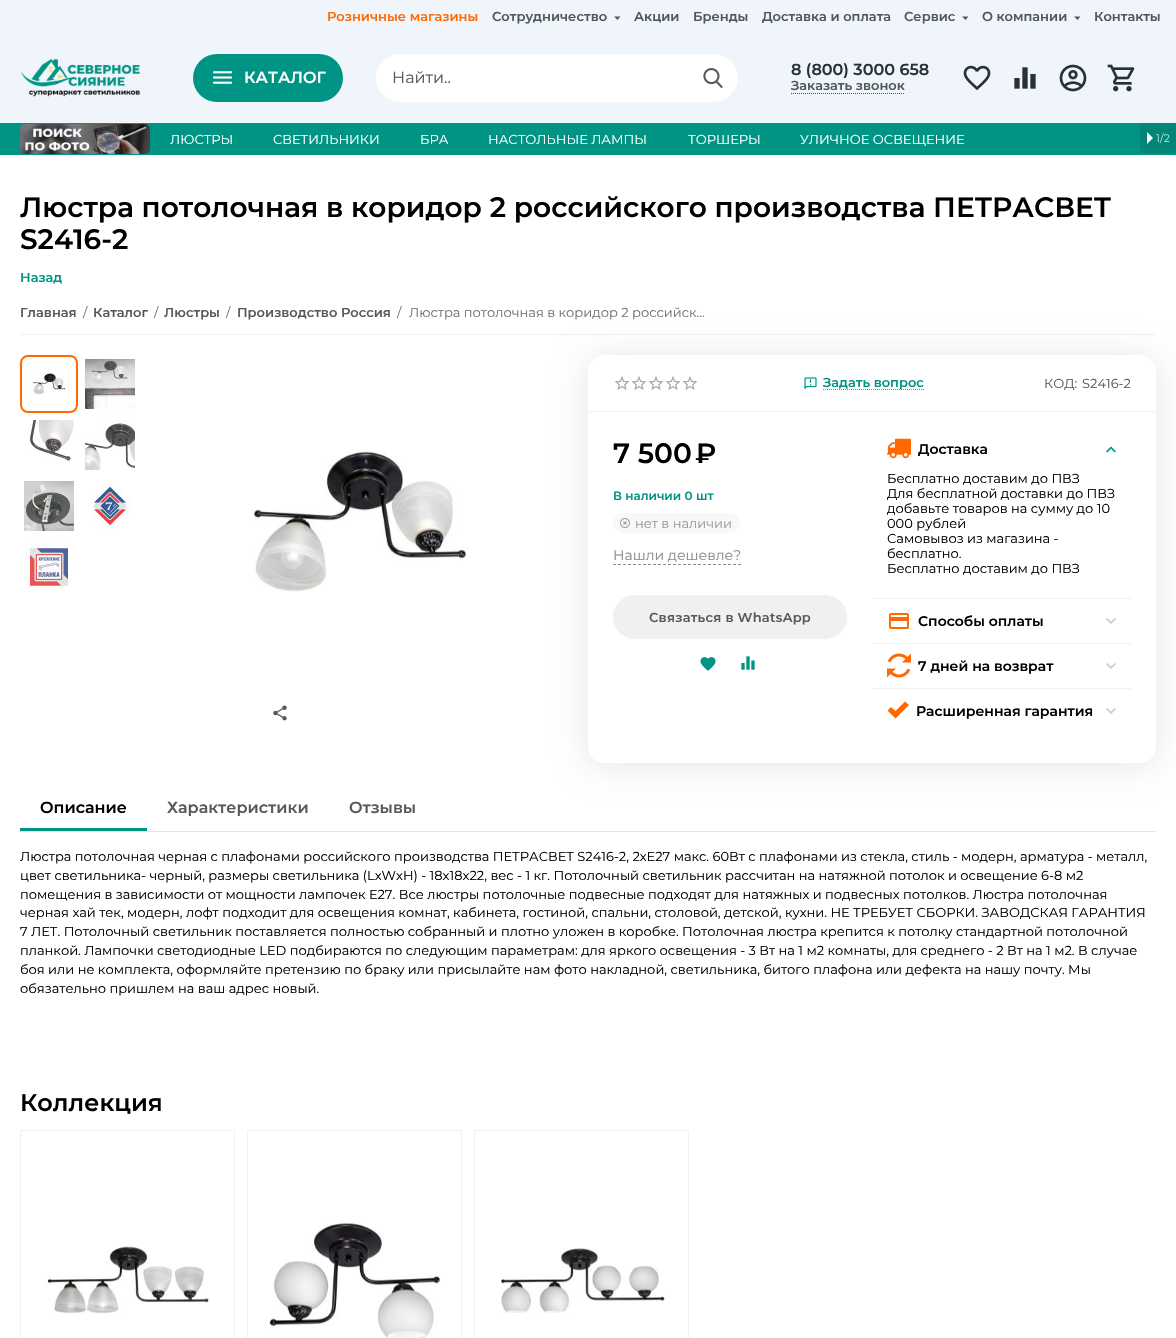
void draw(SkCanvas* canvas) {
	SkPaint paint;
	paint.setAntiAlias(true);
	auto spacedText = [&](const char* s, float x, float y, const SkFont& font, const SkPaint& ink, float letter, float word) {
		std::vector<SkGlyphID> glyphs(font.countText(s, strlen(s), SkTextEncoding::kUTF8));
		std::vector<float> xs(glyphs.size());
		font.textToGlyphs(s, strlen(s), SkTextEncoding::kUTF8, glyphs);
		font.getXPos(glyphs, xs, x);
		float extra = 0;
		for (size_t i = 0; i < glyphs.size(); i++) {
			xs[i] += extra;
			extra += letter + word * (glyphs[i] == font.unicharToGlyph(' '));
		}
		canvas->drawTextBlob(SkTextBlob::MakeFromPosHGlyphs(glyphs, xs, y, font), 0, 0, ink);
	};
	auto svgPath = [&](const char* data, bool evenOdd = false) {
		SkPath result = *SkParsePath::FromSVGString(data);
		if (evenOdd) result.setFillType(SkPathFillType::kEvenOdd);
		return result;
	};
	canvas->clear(0xffffffff);
	paint.setColor(0xfff0f4fb);
	canvas->drawRect(SkRect::MakeXYWH(0, 0, 1176, 32), paint);
	paint.setColor(0xfff0f0f0);
	canvas->drawRect(SkRect::MakeXYWH(0, 32, 1176, 1), paint);
	SkFont f1(fontMgr->matchFamilyStyle("Montserrat", SkFontStyle(600, SkFontStyle::kNormal_Width, SkFontStyle::kUpright_Slant)), 13);
	f1.setSubpixel(true);
	paint.setColor(0xffff6900);
	canvas->drawString("Розничные магазины", 327, 21, f1, paint);
	paint.setColor(0xff4e5754);
	canvas->drawString("Сотрудничество", 492, 21, f1, paint);
	paint.setColor(0xff595959);
	canvas->drawPath(svgPath("M617.5 20L614 16.5H620.5Z"), paint);
	paint.setColor(0xff4e5754);
	canvas->drawString("Акции", 634, 21, f1, paint);
	canvas->drawString("Бренды", 693, 21, f1, paint);
	canvas->drawString("Доставка и оплата", 762, 21, f1, paint);
	canvas->drawString("Сервис", 904, 21, f1, paint);
	paint.setColor(0xff595959);
	canvas->drawPath(svgPath("M965.5 20L962 16.5H968.5Z"), paint);
	paint.setColor(0xff4e5754);
	canvas->drawString("О компании", 982, 21, f1, paint);
	paint.setColor(0xff595959);
	canvas->drawPath(svgPath("M1077.5 20L1074 16.5H1080.5Z"), paint);
	paint.setColor(0xff4e5754);
	canvas->drawString("Контакты", 1094, 21, f1, paint);
	paint.setColor(0xfff0f4fb);
	canvas->drawRect(SkRect::MakeXYWH(0, 33, 1176, 90), paint);
	canvas->drawImageRect(SkImages::DeferredFromEncodedData(SkData::MakeFromFileName("img1.png")), SkRect::MakeXYWH(21, 58, 120, 39), SkSamplingOptions());
	paint.setColor(0xff009484);
	canvas->drawRoundRect(SkRect::MakeXYWH(193, 54, 150, 48), 24, 24, paint);
	canvas->drawImageRect(SkImages::DeferredFromEncodedData(SkData::MakeFromFileName("img2.png")), SkRect::MakeXYWH(213, 71, 19, 13), SkSamplingOptions());
	SkFont f2(fontMgr->matchFamilyStyle("Montserrat", SkFontStyle(600, SkFontStyle::kNormal_Width, SkFontStyle::kUpright_Slant)), 16);
	f2.setSubpixel(true);
	paint.setColor(0xffffffff);
	canvas->drawString("КАТАЛОГ", 244, 83, f2, paint);
	canvas->drawRoundRect(SkRect::MakeXYWH(376.5, 54.5, 361, 47), 23.5, 23.5, paint);
	paint.setStroke(true);
	paint.setStrokeWidth(1);
	canvas->drawRoundRect(SkRect::MakeXYWH(376.5, 54.5, 361, 47), 23.5, 23.5, paint);
	SkFont f3(fontMgr->matchFamilyStyle("Montserrat", SkFontStyle::Normal()), 16);
	f3.setSubpixel(true);
	paint.setStroke(false);
	paint.setColor(0xff4e5754);
	canvas->drawString("Найти..", 392, 83, f3, paint);
	canvas->drawImageRect(SkImages::DeferredFromEncodedData(SkData::MakeFromFileName("img3.png")), SkRect::MakeXYWH(703, 68, 20, 20), SkSamplingOptions());
	paint.setColor(0xff293133);
	canvas->drawString("8 (800) 3000 658", 791, 75, f2, paint);
	paint.setColor(0xff4e5754);
	canvas->drawString("Заказать звонок", 791, 90, f1, paint);
	paint.setStroke(true);
	paint.setPathEffect(SkDashPathEffect::Make({{1, 1}}, 0));
	canvas->drawPath(svgPath("M791 93.5H905"), paint);
	paint.setPathEffect(nullptr);
	canvas->drawImageRect(SkImages::DeferredFromEncodedData(SkData::MakeFromFileName("img4.png")), SkRect::MakeXYWH(963, 65, 28, 26), SkSamplingOptions());
	canvas->drawImageRect(SkImages::DeferredFromEncodedData(SkData::MakeFromFileName("img5.png")), SkRect::MakeXYWH(1014, 67, 22, 22), SkSamplingOptions());
	canvas->drawImageRect(SkImages::DeferredFromEncodedData(SkData::MakeFromFileName("img6.png")), SkRect::MakeXYWH(1059, 64, 28, 28), SkSamplingOptions());
	canvas->drawImageRect(SkImages::DeferredFromEncodedData(SkData::MakeFromFileName("img7.png")), SkRect::MakeXYWH(1107, 64, 28, 28), SkSamplingOptions());
	paint.setStroke(false);
	paint.setColor(0xff009484);
	canvas->drawRect(SkRect::MakeXYWH(0, 123, 1176, 32), paint);
	canvas->drawImageRect(SkImages::DeferredFromEncodedData(SkData::MakeFromFileName("img8.png")), SkRect::MakeXYWH(20, 124, 130, 30), SkSamplingOptions());
	SkFont f4(fontMgr->matchFamilyStyle("Montserrat", SkFontStyle::Normal()), 13);
	f4.setSubpixel(true);
	paint.setColor(0xffffffff);
	canvas->drawString("ЛЮСТРЫ", 170, 144, f4, paint);
	canvas->drawString("СВЕТИЛЬНИКИ", 273, 144, f4, paint);
	canvas->drawString("БРА", 420, 144, f4, paint);
	canvas->drawString("НАСТОЛЬНЫЕ ЛАМПЫ", 488, 144, f4, paint);
	canvas->drawString("ТОРШЕРЫ", 688, 144, f4, paint);
	canvas->drawString("УЛИЧНОЕ ОСВЕЩЕНИЕ", 800, 144, f4, paint);
	paint.setColor(0xff008577);
	canvas->drawRoundRect(SkRect::MakeXYWH(1140, 123, 36, 30), 4, 4, paint);
	paint.setColor(0xffffffff);
	canvas->drawPath(svgPath("M1147 144V132L1153 138Z"), paint);
	SkFont f5(fontMgr->matchFamilyStyle("Montserrat", SkFontStyle::Normal()), 11);
	f5.setSubpixel(true);
	paint.setColor(0xffb3dad6);
	canvas->drawString("1/2", 1156, 142, f5, paint);
	SkFont f6(fontMgr->matchFamilyStyle("Montserrat", SkFontStyle(600, SkFontStyle::kNormal_Width, SkFontStyle::kUpright_Slant)), 28);
	f6.setSubpixel(true);
	paint.setColor(0xff000000);
	canvas->drawString("Люстра потолочная в коридор 2 российского производства ПЕТРАСВЕТ", 20, 217, f6, paint);
	canvas->drawString("S2416-2", 20, 249, f6, paint);
	paint.setColor(0xff009484);
	canvas->drawString("Назад", 20, 282, f1, paint);
	paint.setColor(0x1a000000);
	paint.setMaskFilter(SkMaskFilter::MakeBlur(kNormal_SkBlurStyle, 16));
	canvas->drawRoundRect(SkRect::MakeXYWH(588, 357, 568, 408), 16, 16, paint);
	paint.setMaskFilter(nullptr);
	paint.setColor(0xfff0f0f0);
	canvas->drawRect(SkRect::MakeXYWH(20, 334, 1136, 1), paint);
	paint.setColor(0xff595959);
	canvas->drawString("Главная", 20, 317, f1, paint);
	paint.setColor(0xff737373);
	canvas->drawString("/", 83, 317, f4, paint);
	paint.setColor(0xff595959);
	canvas->drawString("Каталог", 93, 317, f1, paint);
	paint.setColor(0xff737373);
	canvas->drawString("/", 154, 317, f4, paint);
	paint.setColor(0xff595959);
	canvas->drawString("Люстры", 164, 317, f1, paint);
	paint.setColor(0xff737373);
	canvas->drawString("/", 226, 317, f4, paint);
	paint.setColor(0xff595959);
	canvas->drawString("Производство Россия", 237, 317, f1, paint);
	paint.setColor(0xff737373);
	canvas->drawString("/", 397, 317, f4, paint);
	canvas->drawString("Люстра потолочная в коридор 2 российск…", 409, 317, f4, paint);
	paint.setStroke(true);
	paint.setStrokeWidth(2);
	paint.setColor(0xffff6900);
	canvas->drawRoundRect(SkRect::MakeXYWH(21, 356, 56, 56), 7, 7, paint);
	canvas->drawImageRect(SkImages::DeferredFromEncodedData(SkData::MakeFromFileName("img9.png")), SkRect::MakeXYWH(32, 368, 40, 29), SkSamplingOptions());
	canvas->drawImageRect(SkImages::DeferredFromEncodedData(SkData::MakeFromFileName("img10.png")), SkRect::MakeXYWH(85, 359, 50, 50), SkSamplingOptions());
	canvas->drawImageRect(SkImages::DeferredFromEncodedData(SkData::MakeFromFileName("img11.png")), SkRect::MakeXYWH(28, 420, 46, 43), SkSamplingOptions());
	canvas->drawImageRect(SkImages::DeferredFromEncodedData(SkData::MakeFromFileName("img12.png")), SkRect::MakeXYWH(85, 420, 50, 50), SkSamplingOptions());
	canvas->drawImageRect(SkImages::DeferredFromEncodedData(SkData::MakeFromFileName("img13.png")), SkRect::MakeXYWH(24, 481, 50, 50), SkSamplingOptions());
	canvas->drawImageRect(SkImages::DeferredFromEncodedData(SkData::MakeFromFileName("img14.png")), SkRect::MakeXYWH(93, 481, 40, 48), SkSamplingOptions());
	canvas->drawImageRect(SkImages::DeferredFromEncodedData(SkData::MakeFromFileName("img15.png")), SkRect::MakeXYWH(24, 542, 48, 48), SkSamplingOptions());
	canvas->drawImageRect(SkImages::DeferredFromEncodedData(SkData::MakeFromFileName("img16.png")), SkRect::MakeXYWH(253, 451, 215, 141), SkSamplingOptions());
	canvas->drawImageRect(SkImages::DeferredFromEncodedData(SkData::MakeFromFileName("img17.png")), SkRect::MakeXYWH(273, 705, 14, 16), SkSamplingOptions());
	paint.setStroke(false);
	paint.setColor(0xffffffff);
	canvas->drawRoundRect(SkRect::MakeXYWH(588, 355, 568, 408), 16, 16, paint);
	paint.setColor(0xfff0f0f0);
	canvas->drawRect(SkRect::MakeXYWH(588, 411, 568, 1), paint);
	canvas->drawImageRect(SkImages::DeferredFromEncodedData(SkData::MakeFromFileName("img18.png")), SkRect::MakeXYWH(614, 376, 84, 14), SkSamplingOptions());
	canvas->drawImageRect(SkImages::DeferredFromEncodedData(SkData::MakeFromFileName("img19.png")), SkRect::MakeXYWH(804, 377, 13, 13), SkSamplingOptions());
	paint.setStroke(true);
	paint.setStrokeWidth(1);
	paint.setColor(0xff0abdaa);
	paint.setPathEffect(SkDashPathEffect::Make({{1, 1}}, 0));
	canvas->drawPath(svgPath("M823 389.5H924"), paint);
	paint.setPathEffect(nullptr);
	paint.setStroke(false);
	paint.setColor(0xff009484);
	canvas->drawString("Задать вопрос", 823, 387, f1, paint);
	paint.setColor(0xff595959);
	canvas->drawString("КОД:", 1044, 388, f4, paint);
	canvas->drawString("S2416-2", 1082, 388, f4, paint);
	paint.setColor(0xff000000);
	canvas->drawString("7 500", 613, 463, f6, paint);
	canvas->drawString("₽", 695, 463, f6, paint);
	SkFont f7(fontMgr->matchFamilyStyle("Montserrat", SkFontStyle(600, SkFontStyle::kNormal_Width, SkFontStyle::kUpright_Slant)), 12);
	f7.setSubpixel(true);
	paint.setColor(0xff009484);
	canvas->drawString("В наличии 0 шт", 613, 500, f7, paint);
	paint.setColor(0xfff8f8f8);
	canvas->drawRoundRect(SkRect::MakeXYWH(613, 513, 127, 20), 10, 10, paint);
	canvas->drawImageRect(SkImages::DeferredFromEncodedData(SkData::MakeFromFileName("img20.png")), SkRect::MakeXYWH(620, 518, 10, 10), SkSamplingOptions());
	paint.setColor(0xff999999);
	canvas->drawString("нет в наличии", 635, 528, f4, paint);
	SkFont f8(fontMgr->matchFamilyStyle("Montserrat", SkFontStyle::Normal()), 14);
	f8.setSubpixel(true);
	paint.setColor(0xff8b8b8b);
	canvas->drawString("Нашли дешевле?", 613, 560, f8, paint);
	paint.setStroke(true);
	paint.setPathEffect(SkDashPathEffect::Make({{3, 2}}, 0));
	canvas->drawPath(svgPath("M613 564.5H741"), paint);
	paint.setPathEffect(nullptr);
	paint.setStroke(false);
	paint.setColor(0xfff0f0f0);
	canvas->drawRoundRect(SkRect::MakeXYWH(613, 595, 234, 44), 22, 22, paint);
	paint.setColor(0xff595959);
	spacedText("Связаться в WhatsApp", 649, 622, f1, paint, 0.25, 0);
	canvas->drawImageRect(SkImages::DeferredFromEncodedData(SkData::MakeFromFileName("img21.png")), SkRect::MakeXYWH(700, 657, 16, 14), SkSamplingOptions());
	canvas->drawImageRect(SkImages::DeferredFromEncodedData(SkData::MakeFromFileName("img22.png")), SkRect::MakeXYWH(741, 656, 14, 14), SkSamplingOptions());
	canvas->drawImageRect(SkImages::DeferredFromEncodedData(SkData::MakeFromFileName("img23.png")), SkRect::MakeXYWH(887, 438, 24, 21), SkSamplingOptions());
	SkFont f9(fontMgr->matchFamilyStyle("Montserrat", SkFontStyle(600, SkFontStyle::kNormal_Width, SkFontStyle::kUpright_Slant)), 14);
	f9.setSubpixel(true);
	paint.setColor(0xff000000);
	canvas->drawString("Доставка", 918, 454, f9, paint);
	canvas->drawImageRect(SkImages::DeferredFromEncodedData(SkData::MakeFromFileName("img24.png")), SkRect::MakeXYWH(1106, 446, 10, 7), SkSamplingOptions());
	canvas->drawString("Бесплатно доставим до ПВЗ", 887, 483, f4, paint);
	canvas->drawString("Для бесплатной доставки до ПВЗ", 887, 498, f4, paint);
	canvas->drawString("добавьте товаров на сумму до 10", 887, 513, f4, paint);
	canvas->drawString("000 рублей", 887, 528, f4, paint);
	canvas->drawString("Самовывоз из магазина -", 887, 543, f4, paint);
	canvas->drawString("бесплатно.", 887, 558, f4, paint);
	canvas->drawString("Бесплатно доставим до ПВЗ", 887, 573, f4, paint);
	paint.setColor(0xfff0f0f0);
	canvas->drawRect(SkRect::MakeXYWH(872, 598, 259, 1), paint);
	canvas->drawImageRect(SkImages::DeferredFromEncodedData(SkData::MakeFromFileName("img25.png")), SkRect::MakeXYWH(889, 613, 20, 16), SkSamplingOptions());
	paint.setColor(0xff000000);
	canvas->drawString("Способы оплаты", 918, 626, f9, paint);
	canvas->drawImageRect(SkImages::DeferredFromEncodedData(SkData::MakeFromFileName("img26.png")), SkRect::MakeXYWH(1106, 618, 10, 6), SkSamplingOptions());
	paint.setColor(0xfff0f0f0);
	canvas->drawRect(SkRect::MakeXYWH(872, 643, 259, 1), paint);
	canvas->drawImageRect(SkImages::DeferredFromEncodedData(SkData::MakeFromFileName("img27.png")), SkRect::MakeXYWH(887, 653, 24, 25), SkSamplingOptions());
	paint.setColor(0xff000000);
	canvas->drawString("7 дней на возврат", 918, 671, f9, paint);
	canvas->drawImageRect(SkImages::DeferredFromEncodedData(SkData::MakeFromFileName("img26.png")), SkRect::MakeXYWH(1106, 663, 10, 6), SkSamplingOptions());
	paint.setColor(0xfff0f0f0);
	canvas->drawRect(SkRect::MakeXYWH(872, 688, 259, 1), paint);
	paint.setColor(0xffff6900);
	canvas->drawPath(svgPath("M895.5 718.5L887.5 710.5L891 707L895.5 711L905 701.5L909 705Z"), paint);
	paint.setColor(0xff000000);
	canvas->drawString("Расширенная гарантия", 916, 716, f9, paint);
	canvas->drawImageRect(SkImages::DeferredFromEncodedData(SkData::MakeFromFileName("img26.png")), SkRect::MakeXYWH(1106, 708, 10, 6), SkSamplingOptions());
	paint.setColor(0xffe3e3e3);
	canvas->drawRect(SkRect::MakeXYWH(20, 831, 1136, 1), paint);
	paint.setColor(0xff009484);
	canvas->drawRect(SkRect::MakeXYWH(20, 828, 127, 3), paint);
	paint.setColor(0xff000000);
	canvas->drawString("Описание", 40, 813, f2, paint);
	paint.setColor(0xff595959);
	canvas->drawString("Характеристики", 167, 813, f2, paint);
	canvas->drawString("Отзывы", 349, 813, f2, paint);
	paint.setColor(0xff000000);
	canvas->drawString("Люстра потолочная черная с плафонами российского производства ПЕТРАСВЕТ S2416-2, 2хЕ27 макс. 60Вт с плафонами из стекла, стиль - модерн, арматура - металл,", 20, 861, f4, paint);
	canvas->drawString("цвет светильника- черный, размеры светильника (LxWxH) - 18x18x22, вес - 1 кг. Потолочный светильник рассчитан на натяжной потолок и освещение 6-8 м2", 20, 880, f4, paint);
	canvas->drawString("помещения в зависимости от мощности лампочек Е27. Все люстры потолочные подвесные подходят для натяжных и подвесных потолков. Люстра потолочная", 20, 899, f4, paint);
	canvas->drawString("черная хай тек, модерн, лофт подходит для освещения комнат, кабинета, гостиной, спальни, столовой, детской, кухни. НЕ ТРЕБУЕТ СБОРКИ. ЗАВОДСКАЯ ГАРАНТИЯ", 20, 917, f4, paint);
	canvas->drawString("7 ЛЕТ. Потолочный светильник поставляется полностью собранный и плотно уложен в коробке. Потолочная люстра крепится к потолку стандартной потолочной", 20, 936, f4, paint);
	canvas->drawString("планкой. Лампочки светодиодные LED подбираются по следующим параметрам: для яркого освещения - 3 Вт на 1 м2 комнаты, для среднего - 2 Вт на 1 м2. В случае", 20, 955, f4, paint);
	canvas->drawString("боя или не комплекта, оформляйте претензию по браку или присылайте нам фото накладной, светильника, битого плафона или дефекта на нашу почту. Мы", 20, 974, f4, paint);
	canvas->drawString("обязательно пришлем на ваш адрес новый.", 20, 993, f4, paint);
	SkFont f10(fontMgr->matchFamilyStyle("Montserrat", SkFontStyle(600, SkFontStyle::kNormal_Width, SkFontStyle::kUpright_Slant)), 24);
	f10.setSubpixel(true);
	canvas->drawString("Коллекция", 20, 1111, f10, paint);
	paint.setStroke(true);
	paint.setColor(0xfff0f0f0);
	canvas->drawRect(SkRect::MakeXYWH(20.5, 1130.5, 214, 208), paint);
	canvas->drawImageRect(SkImages::DeferredFromEncodedData(SkData::MakeFromFileName("img28.png")), SkRect::MakeXYWH(46, 1246, 164, 67), SkSamplingOptions());
	canvas->drawRect(SkRect::MakeXYWH(247.5, 1130.5, 214, 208), paint);
	canvas->drawImageRect(SkImages::DeferredFromEncodedData(SkData::MakeFromFileName("img29.png")), SkRect::MakeXYWH(269, 1222, 173, 116), SkSamplingOptions());
	canvas->drawRect(SkRect::MakeXYWH(474.5, 1130.5, 214, 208), paint);
	canvas->drawImageRect(SkImages::DeferredFromEncodedData(SkData::MakeFromFileName("img30.png")), SkRect::MakeXYWH(501, 1248, 164, 65), SkSamplingOptions());
}
